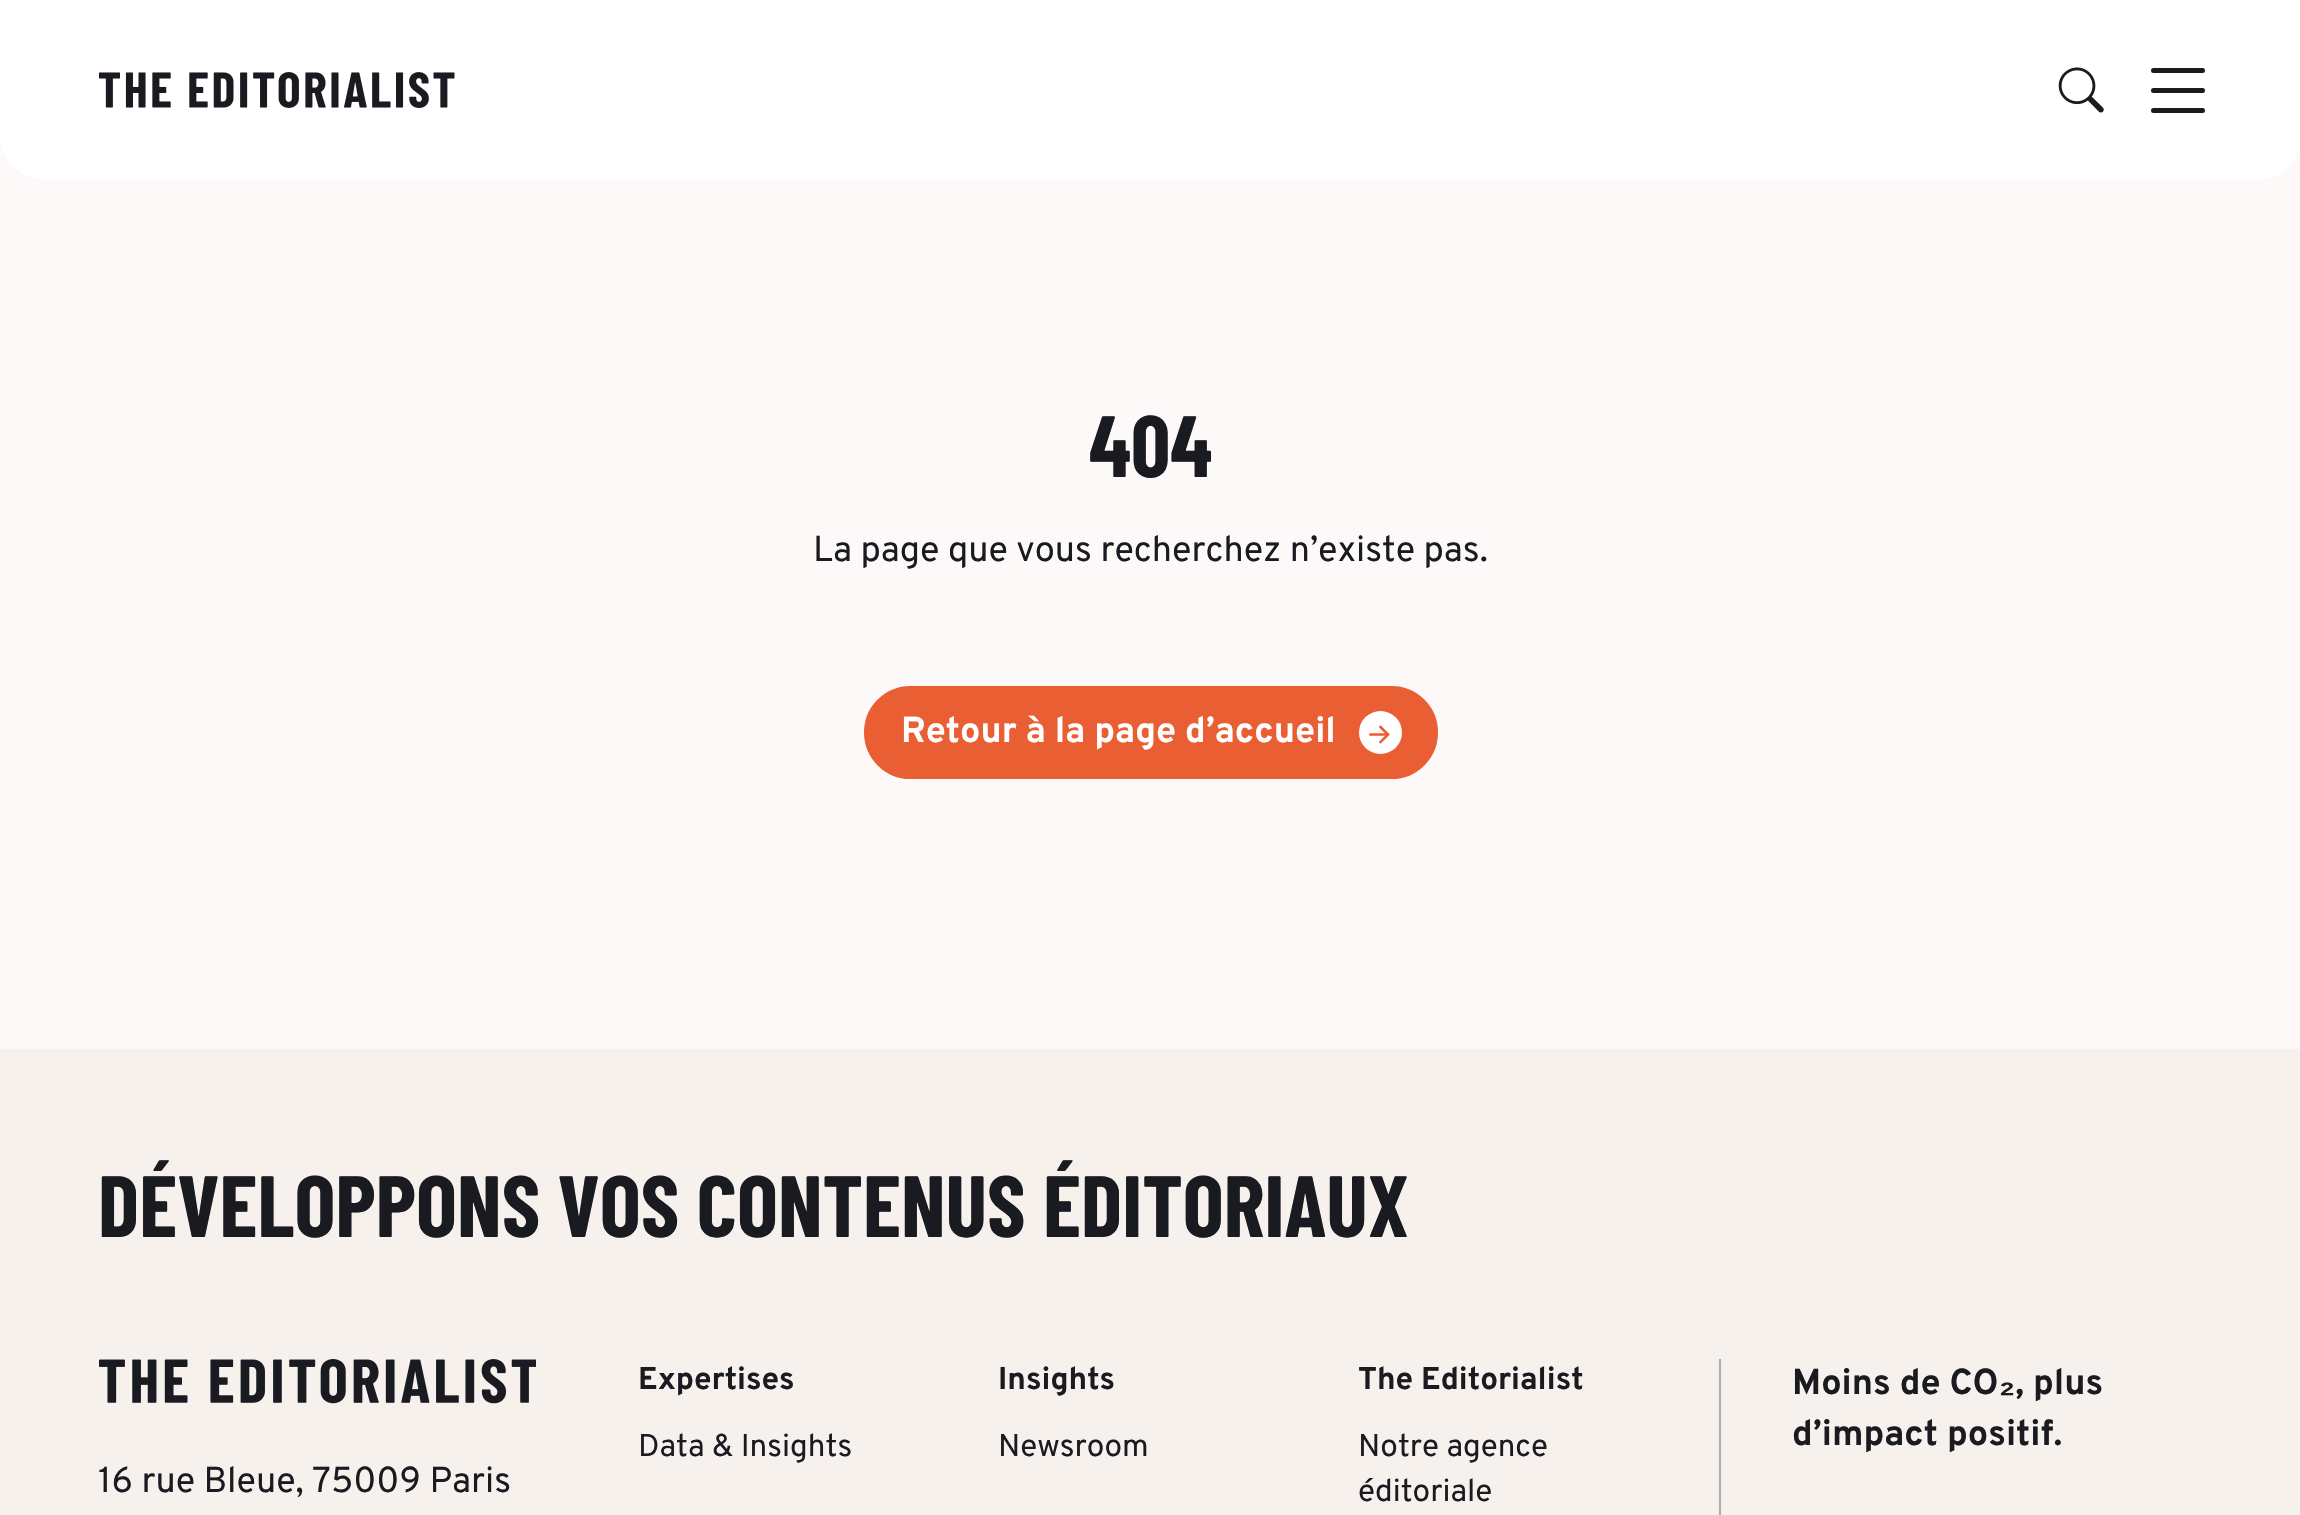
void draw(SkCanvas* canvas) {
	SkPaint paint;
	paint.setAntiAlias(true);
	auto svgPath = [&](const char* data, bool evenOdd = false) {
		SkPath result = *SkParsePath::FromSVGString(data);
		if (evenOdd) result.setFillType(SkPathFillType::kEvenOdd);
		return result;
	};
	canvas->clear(0xfffcf9f8);
	paint.setColor(0xffffffff);
	canvas->drawPath(svgPath("M0 0H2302V135C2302 160 2282 180 2257 180H45C20 180 0 160 0 135Z"), paint);
	canvas->drawImageRect(SkImages::DeferredFromEncodedData(SkData::MakeFromFileName("img1.png")), SkRect::MakeXYWH(99, 72, 356, 36), SkSamplingOptions());
	canvas->drawImageRect(SkImages::DeferredFromEncodedData(SkData::MakeFromFileName("img2.png")), SkRect::MakeXYWH(2058, 67, 46, 46), SkSamplingOptions());
	paint.setColor(0xff1a1a21);
	canvas->drawRoundRect(SkRect::MakeXYWH(2151, 68, 54, 5), 2.5, 2.5, paint);
	canvas->drawRoundRect(SkRect::MakeXYWH(2151, 88, 54, 5), 2.5, 2.5, paint);
	canvas->drawRoundRect(SkRect::MakeXYWH(2151, 108, 54, 5), 2.5, 2.5, paint);
	SkFont f1(fontMgr->matchFamilyStyle("Barlow Condensed", SkFontStyle::Bold()), 86.7);
	f1.setSubpixel(true);
	canvas->drawString("404", 1089, 477, f1, paint);
	SkFont f2(fontMgr->matchFamilyStyle("Overpass", SkFontStyle::Normal()), 36);
	f2.setSubpixel(true);
	canvas->drawString("La page que vous recherchez n’existe pas.", 813, 561, f2, paint);
	paint.setColor(0xffea5e34);
	canvas->drawRoundRect(SkRect::MakeXYWH(865, 687, 572, 91), 45.5, 45.5, paint);
	paint.setStroke(true);
	paint.setStrokeWidth(2);
	canvas->drawRoundRect(SkRect::MakeXYWH(865, 687, 572, 91), 45.5, 45.5, paint);
	SkFont f3(fontMgr->matchFamilyStyle("Overpass", SkFontStyle::Bold()), 36);
	f3.setSubpixel(true);
	paint.setStroke(false);
	paint.setColor(0xffffffff);
	canvas->drawString("Retour à la page d’accueil", 901, 742, f3, paint);
	canvas->drawCircle(1380.5, 732.5, 21.5, paint);
	paint.setStroke(true);
	paint.setStrokeWidth(2.5);
	paint.setStrokeCap(SkPaint::kSquare_Cap);
	paint.setStrokeJoin(SkPaint::kRound_Join);
	paint.setColor(0xffea5e34);
	canvas->drawPath(svgPath("M1370.5 734.5H1388M1388 734.5L1380.5 727M1388 734.5L1380.5 742"), paint);
	paint.setStroke(false);
	paint.setColor(0xfff7f1ed);
	canvas->drawRect(SkRect::MakeXYWH(0, 1049, 2300, 466), paint);
	paint.setColor(0xff1a1a21);
	canvas->drawString("DÉVELOPPONS VOS CONTENUS ÉDITORIAUX", 98, 1237, f1, paint);
	SkFont f4(fontMgr->matchFamilyStyle("Overpass", SkFontStyle::Bold()), 31.5);
	f4.setSubpixel(true);
	canvas->drawString("Expertises", 638, 1389, f4, paint);
	SkFont f5(fontMgr->matchFamilyStyle("Overpass", SkFontStyle::Normal()), 31.5);
	f5.setSubpixel(true);
	canvas->drawString("Data & Insights", 638, 1456, f5, paint);
	canvas->drawString("Insights", 998, 1389, f4, paint);
	canvas->drawString("Newsroom", 998, 1456, f5, paint);
	canvas->drawString("The Editorialist", 1358, 1389, f4, paint);
	canvas->drawString("Notre agence", 1358, 1456, f5, paint);
	canvas->drawString("éditoriale", 1358, 1501, f5, paint);
	paint.setColor(0xffacacb3);
	canvas->drawRect(SkRect::MakeXYWH(1719, 1359, 2, 156), paint);
	paint.setColor(0xff1a1a21);
	canvas->drawString("Moins de CO", 1792, 1394, f3, paint);
	SkFont f6(fontMgr->matchFamilyStyle("Liberation Sans", SkFontStyle::Bold()), 36);
	f6.setSubpixel(true);
	canvas->drawString("₂", 1999, 1394, f6, paint);
	canvas->drawString(", plus", 2015, 1394, f3, paint);
	canvas->drawString("d’impact positif.", 1792, 1445, f3, paint);
	canvas->drawImageRect(SkImages::DeferredFromEncodedData(SkData::MakeFromFileName("img3.png")), SkRect::MakeXYWH(99, 1359, 437, 45), SkSamplingOptions());
	canvas->drawString("16 rue Bleue, 75009 Paris", 98, 1492, f2, paint);
}
